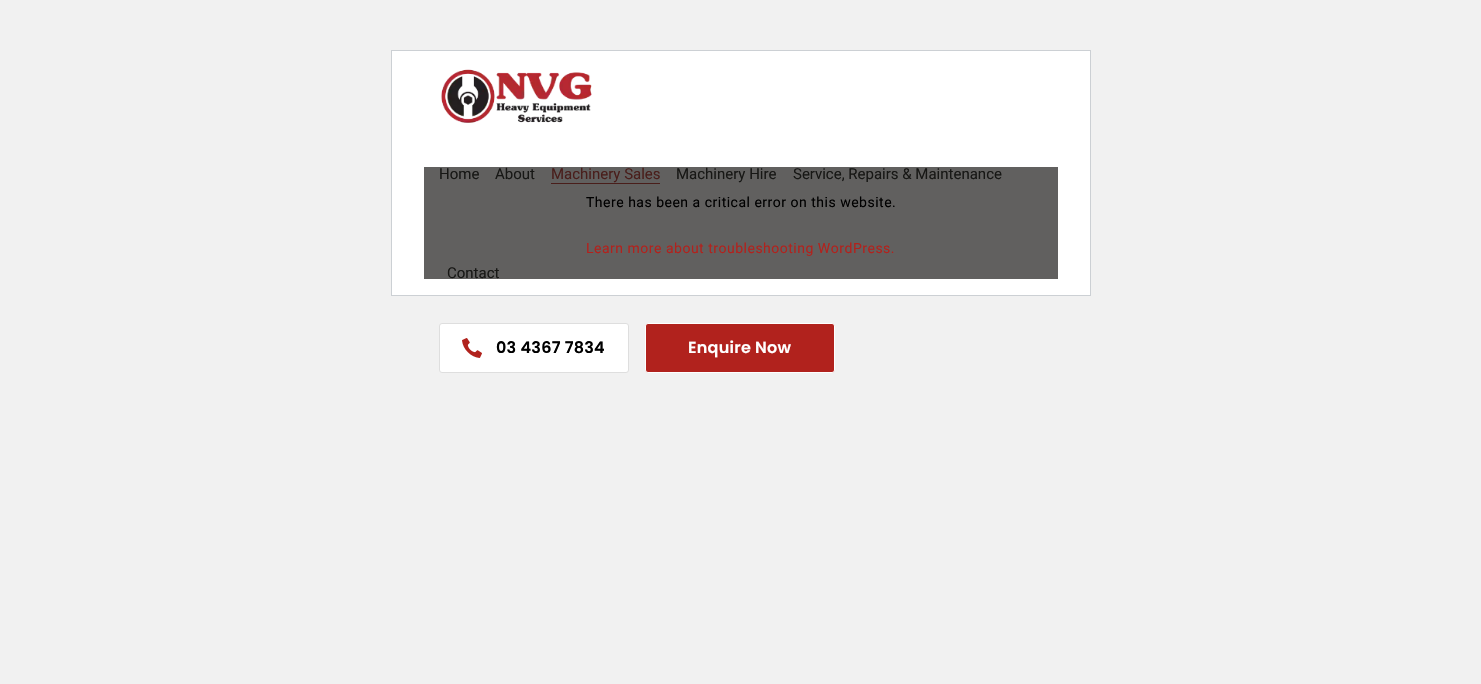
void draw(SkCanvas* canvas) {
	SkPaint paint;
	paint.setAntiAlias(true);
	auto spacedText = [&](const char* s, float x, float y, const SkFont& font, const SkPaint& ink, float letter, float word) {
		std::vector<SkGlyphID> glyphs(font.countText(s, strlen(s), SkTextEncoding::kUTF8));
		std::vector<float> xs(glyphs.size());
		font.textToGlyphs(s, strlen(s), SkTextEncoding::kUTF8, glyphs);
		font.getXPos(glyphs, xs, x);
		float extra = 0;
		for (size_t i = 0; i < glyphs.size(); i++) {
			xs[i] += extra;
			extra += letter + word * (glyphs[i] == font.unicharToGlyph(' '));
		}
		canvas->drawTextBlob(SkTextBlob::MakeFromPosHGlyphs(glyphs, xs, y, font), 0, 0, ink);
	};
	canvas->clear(0xfff1f1f1);
	paint.setColor(0xffffffff);
	canvas->drawRect(SkRect::MakeXYWH(392, 51, 698, 244), paint);
	paint.setColor(0xff61605f);
	canvas->drawRect(SkRect::MakeXYWH(424, 167, 634, 112), paint);
	paint.setStroke(true);
	paint.setStrokeWidth(1);
	paint.setColor(0xffccd0d4);
	canvas->drawRect(SkRect::MakeXYWH(391.5, 50.5, 699, 245), paint);
	canvas->drawImageRect(SkImages::DeferredFromEncodedData(SkData::MakeFromFileName("img1.png")), SkRect::MakeXYWH(441, 69, 151, 54), SkSamplingOptions());
	SkFont f1(fontMgr->matchFamilyStyle("Roboto", SkFontStyle::Normal()), 15);
	f1.setSubpixel(true);
	paint.setStroke(false);
	paint.setColor(0xff171715);
	canvas->drawString("Home", 439, 179, f1, paint);
	canvas->drawString("About", 495, 179, f1, paint);
	paint.setColor(0xff491e1b);
	canvas->drawString("Machinery Sales", 551, 179, f1, paint);
	canvas->drawRect(SkRect::MakeXYWH(551, 183, 109, 1), paint);
	paint.setColor(0xff171715);
	canvas->drawString("Machinery Hire", 676, 179, f1, paint);
	canvas->drawString("Service, Repairs & Maintenance", 793, 179, f1, paint);
	canvas->drawString("Contact", 447, 278, f1, paint);
	paint.setColor(0xffffffff);
	canvas->drawRoundRect(SkRect::MakeXYWH(439.5, 323.5, 189, 49), 2.5, 2.5, paint);
	paint.setStroke(true);
	paint.setColor(0xffdedede);
	canvas->drawRoundRect(SkRect::MakeXYWH(439.5, 323.5, 189, 49), 2.5, 2.5, paint);
	canvas->drawImageRect(SkImages::DeferredFromEncodedData(SkData::MakeFromFileName("img2.png")), SkRect::MakeXYWH(462, 338, 20, 20), SkSamplingOptions());
	SkFont f2(fontMgr->matchFamilyStyle("Poppins", SkFontStyle(600, SkFontStyle::kNormal_Width, SkFontStyle::kUpright_Slant)), 16);
	f2.setSubpixel(true);
	paint.setStroke(false);
	paint.setColor(0xff000000);
	spacedText("03 4367 7834", 496, 353, f2, paint, 0.25, 0);
	paint.setColor(0xffb1221d);
	canvas->drawRoundRect(SkRect::MakeXYWH(645.5, 323.5, 189, 49), 2.5, 2.5, paint);
	paint.setStroke(true);
	paint.setColor(0xffffffff);
	canvas->drawRoundRect(SkRect::MakeXYWH(645.5, 323.5, 189, 49), 2.5, 2.5, paint);
	paint.setStroke(false);
	spacedText("Enquire Now", 688, 353, f2, paint, 0.25, 0);
	SkFont f3(fontMgr->matchFamilyStyle("Roboto", SkFontStyle::Normal()), 14);
	f3.setSubpixel(true);
	paint.setColor(0xff000000);
	spacedText("There has been a critical error on this website.", 586, 207, f3, paint, 0.5, 0);
	paint.setColor(0xffb1221d);
	spacedText("Learn more about troubleshooting WordPress.", 586, 253, f3, paint, 0.5, 0);
}
